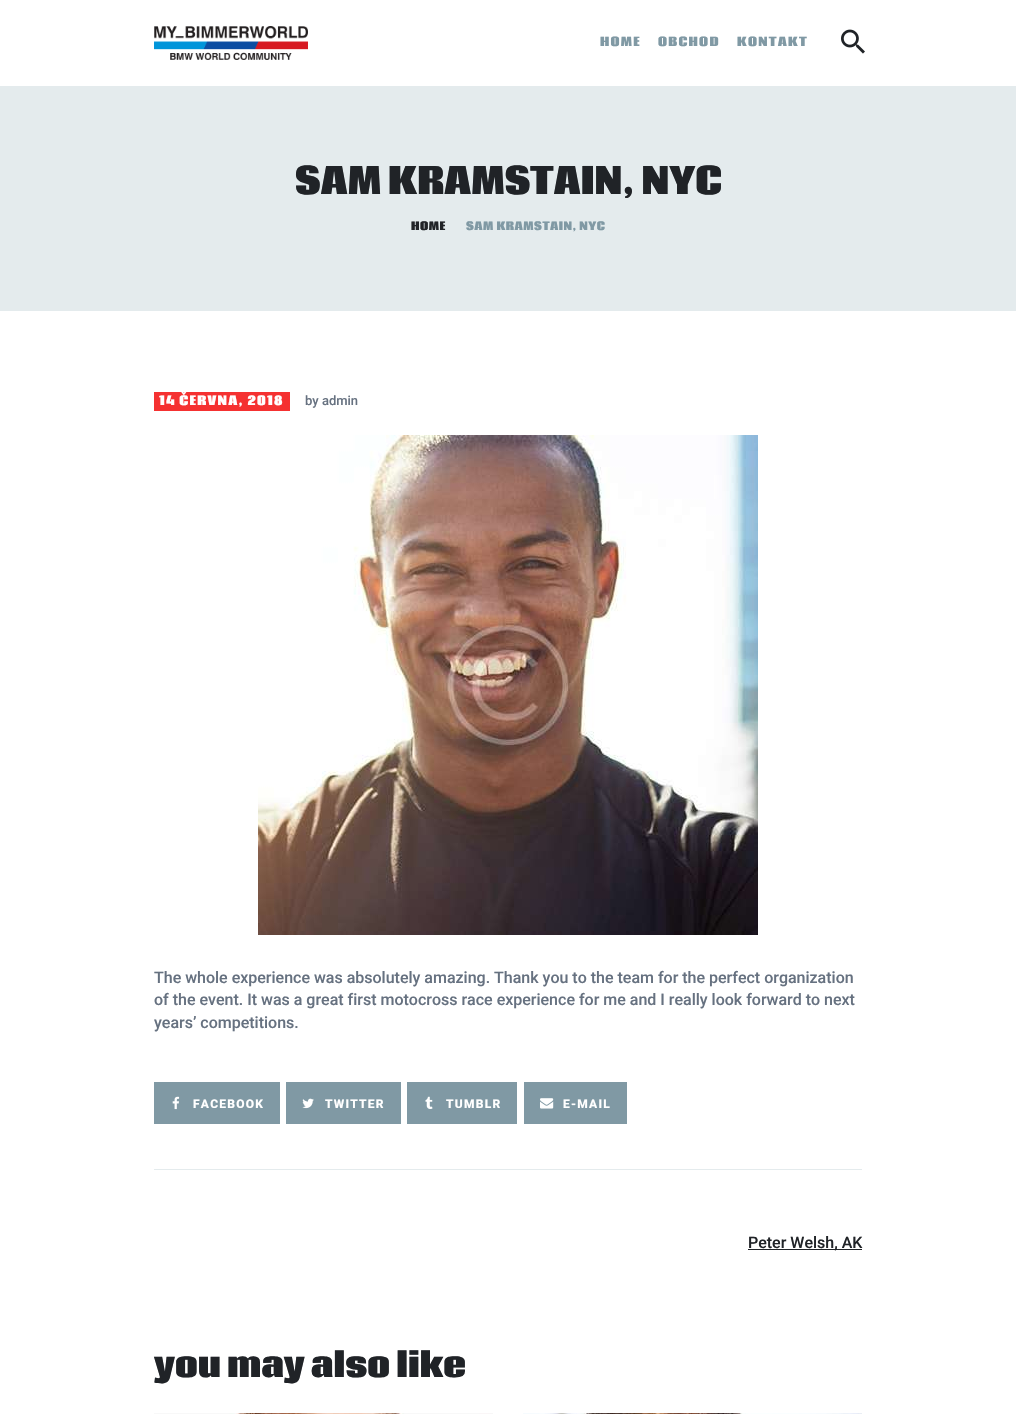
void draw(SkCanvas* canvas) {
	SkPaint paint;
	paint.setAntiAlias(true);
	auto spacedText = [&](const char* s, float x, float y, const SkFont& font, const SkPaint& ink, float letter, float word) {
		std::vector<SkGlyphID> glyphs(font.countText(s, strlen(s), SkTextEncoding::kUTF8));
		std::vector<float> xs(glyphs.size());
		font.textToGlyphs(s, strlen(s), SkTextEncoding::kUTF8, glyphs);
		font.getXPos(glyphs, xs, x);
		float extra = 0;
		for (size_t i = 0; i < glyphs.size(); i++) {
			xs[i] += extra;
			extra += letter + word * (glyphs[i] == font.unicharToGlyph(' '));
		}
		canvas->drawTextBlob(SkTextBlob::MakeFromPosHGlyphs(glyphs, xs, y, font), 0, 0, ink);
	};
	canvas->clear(0xffffffff);
	paint.setColor(0xffe4ebed);
	canvas->drawRect(SkRect::MakeXYWH(0, 86, 1016, 225), paint);
	canvas->drawImageRect(SkImages::DeferredFromEncodedData(SkData::MakeFromFileName("img1.png")), SkRect::MakeXYWH(154, 26, 154, 34), SkSamplingOptions());
	SkFont f1(fontMgr->matchFamilyStyle("Coda", SkFontStyle(800, SkFontStyle::kNormal_Width, SkFontStyle::kUpright_Slant)), 12);
	f1.setSubpixel(true);
	paint.setColor(0xff8099a4);
	spacedText("HOME", 600, 46, f1, paint, 1.25, 0);
	spacedText("OBCHOD", 658, 46, f1, paint, 1.25, 0);
	spacedText("KONTAKT", 737, 46, f1, paint, 1.25, 0);
	canvas->drawImageRect(SkImages::DeferredFromEncodedData(SkData::MakeFromFileName("img2.png")), SkRect::MakeXYWH(841, 29, 24, 25), SkSamplingOptions());
	SkFont f2(fontMgr->matchFamilyStyle("Coda", SkFontStyle(800, SkFontStyle::kNormal_Width, SkFontStyle::kUpright_Slant)), 36);
	f2.setSubpixel(true);
	paint.setColor(0xff202327);
	canvas->drawString("SAM KRAMSTAIN, NYC", 295, 194, f2, paint);
	SkFont f3(fontMgr->matchFamilyStyle("Coda", SkFontStyle(800, SkFontStyle::kNormal_Width, SkFontStyle::kUpright_Slant)), 11);
	f3.setSubpixel(true);
	spacedText("HOME", 411, 230, f3, paint, 0.5, 0);
	paint.setColor(0xff8099a4);
	spacedText("SAM KRAMSTAIN, NYC", 466, 230, f3, paint, 0.5, 0);
	paint.setColor(0xfff53131);
	canvas->drawRect(SkRect::MakeXYWH(154, 392, 136, 19), paint);
	SkFont f4(fontMgr->matchFamilyStyle("Coda", SkFontStyle(800, SkFontStyle::kNormal_Width, SkFontStyle::kUpright_Slant)), 12.1);
	f4.setSubpixel(true);
	paint.setColor(0xffffffff);
	spacedText("14 ČERVNA, 2018", 159, 405, f4, paint, 1.25, 0);
	SkFont f5(fontMgr->matchFamilyStyle("Roboto", SkFontStyle(500, SkFontStyle::kNormal_Width, SkFontStyle::kUpright_Slant)), 13);
	f5.setSubpixel(true);
	paint.setColor(0xff667180);
	canvas->drawString("by admin", 305, 405, f5, paint);
	canvas->drawImageRect(SkImages::DeferredFromEncodedData(SkData::MakeFromFileName("img3.png")), SkRect::MakeXYWH(258, 435, 500, 500), SkSamplingOptions());
	SkFont f6(fontMgr->matchFamilyStyle("Roboto", SkFontStyle(500, SkFontStyle::kNormal_Width, SkFontStyle::kUpright_Slant)), 16);
	f6.setSubpixel(true);
	canvas->drawString("The whole experience was absolutely amazing. Thank you to the team for the perfect organization", 154, 983, f6, paint);
	canvas->drawString("of the event. It was a great first motocross race experience for me and I really look forward to next", 154, 1005, f6, paint);
	canvas->drawString("years’ competitions.", 154, 1028, f6, paint);
	paint.setColor(0xff8099a4);
	canvas->drawRect(SkRect::MakeXYWH(154, 1082, 126, 42), paint);
	canvas->drawImageRect(SkImages::DeferredFromEncodedData(SkData::MakeFromFileName("img4.png")), SkRect::MakeXYWH(172, 1096, 8, 14), SkSamplingOptions());
	SkFont f7(fontMgr->matchFamilyStyle("Roboto", SkFontStyle(800, SkFontStyle::kNormal_Width, SkFontStyle::kUpright_Slant)), 12);
	f7.setSubpixel(true);
	paint.setColor(0xffffffff);
	spacedText("FACEBOOK", 193, 1108, f7, paint, 1.25, 0);
	paint.setColor(0xff8099a4);
	canvas->drawRect(SkRect::MakeXYWH(286, 1082, 115, 42), paint);
	canvas->drawImageRect(SkImages::DeferredFromEncodedData(SkData::MakeFromFileName("img5.png")), SkRect::MakeXYWH(302, 1098, 12, 11), SkSamplingOptions());
	paint.setColor(0xffffffff);
	spacedText("TWITTER", 325, 1108, f7, paint, 1.25, 0);
	paint.setColor(0xff8099a4);
	canvas->drawRect(SkRect::MakeXYWH(407, 1082, 110, 42), paint);
	canvas->drawImageRect(SkImages::DeferredFromEncodedData(SkData::MakeFromFileName("img6.png")), SkRect::MakeXYWH(425, 1096, 8, 13), SkSamplingOptions());
	paint.setColor(0xffffffff);
	spacedText("TUMBLR", 446, 1108, f7, paint, 1.25, 0);
	paint.setColor(0xff8099a4);
	canvas->drawRect(SkRect::MakeXYWH(524, 1082, 103, 42), paint);
	canvas->drawImageRect(SkImages::DeferredFromEncodedData(SkData::MakeFromFileName("img7.png")), SkRect::MakeXYWH(540, 1098, 14, 11), SkSamplingOptions());
	paint.setColor(0xffffffff);
	spacedText("E-MAIL", 563, 1108, f7, paint, 1.25, 0);
	paint.setColor(0xffe4ebed);
	canvas->drawRect(SkRect::MakeXYWH(154, 1169, 708, 1), paint);
	paint.setColor(0xff202327);
	canvas->drawRect(SkRect::MakeXYWH(748, 1249, 114, 1), paint);
	canvas->drawString("Peter Welsh, AK", 748, 1248, f6, paint);
	SkFont f8(fontMgr->matchFamilyStyle("Coda", SkFontStyle(800, SkFontStyle::kNormal_Width, SkFontStyle::kUpright_Slant)), 32);
	f8.setSubpixel(true);
	canvas->drawString("you may also like", 154, 1377, f8, paint);
	canvas->drawImageRect(SkImages::DeferredFromEncodedData(SkData::MakeFromFileName("img8.png")), SkRect::MakeXYWH(154, 1413, 339, 1), SkSamplingOptions());
	canvas->drawImageRect(SkImages::DeferredFromEncodedData(SkData::MakeFromFileName("img9.png")), SkRect::MakeXYWH(523, 1413, 339, 1), SkSamplingOptions());
}
